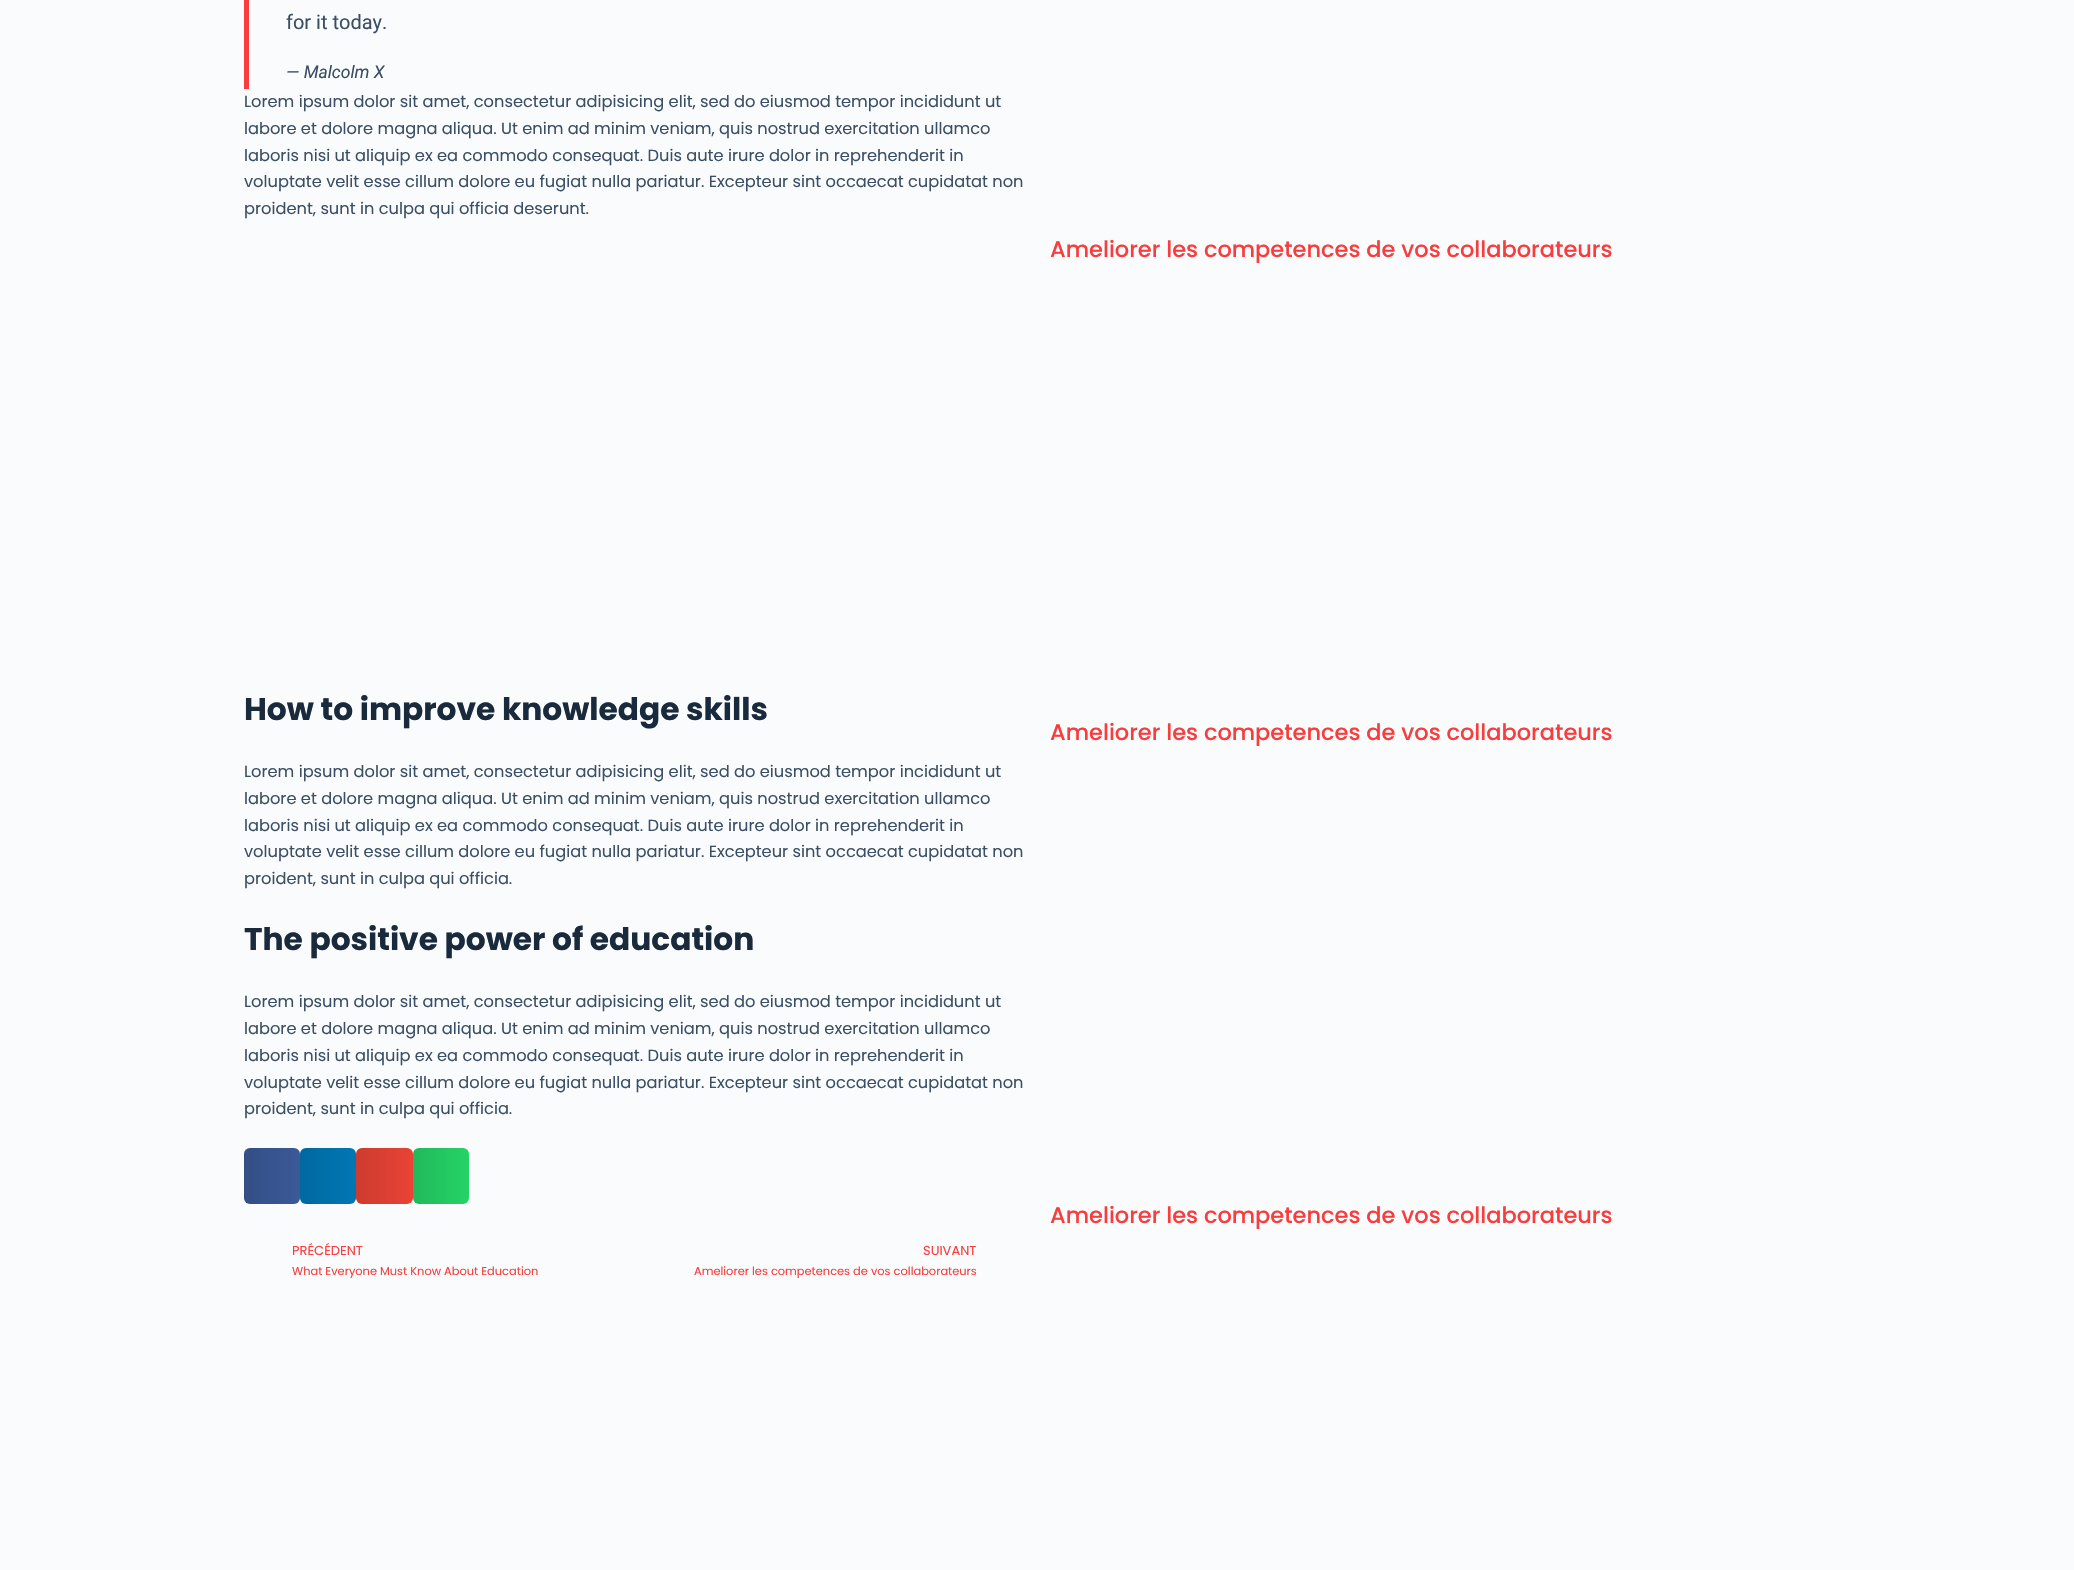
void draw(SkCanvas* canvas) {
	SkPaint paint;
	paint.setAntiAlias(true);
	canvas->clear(0xfffafbfc);
	paint.setColor(0xfff83d3e);
	canvas->drawRect(SkRect::MakeXYWH(244, 0, 5, 89), paint);
	SkFont f1(fontMgr->matchFamilyStyle("Roboto", SkFontStyle::Normal()), 20);
	f1.setSubpixel(true);
	paint.setColor(0xff3a4f66);
	canvas->drawString("for it today.", 286, 29, f1, paint);
	SkFont f2(fontMgr->matchFamilyStyle("Roboto", SkFontStyle::Italic()), 17.5);
	f2.setSubpixel(true);
	canvas->drawString("― Malcolm X", 286, 78, f2, paint);
	SkFont f3(fontMgr->matchFamilyStyle("Poppins", SkFontStyle::Normal()), 16.25);
	f3.setSubpixel(true);
	canvas->drawString("Lorem ipsum dolor sit amet, consectetur adipisicing elit, sed do eiusmod tempor incididunt ut", 244, 107, f3, paint);
	canvas->drawString("labore et dolore magna aliqua. Ut enim ad minim veniam, quis nostrud exercitation ullamco", 244, 134, f3, paint);
	canvas->drawString("laboris nisi ut aliquip ex ea commodo consequat. Duis aute irure dolor in reprehenderit in", 244, 161, f3, paint);
	canvas->drawString("voluptate velit esse cillum dolore eu fugiat nulla pariatur. Excepteur sint occaecat cupidatat non", 244, 187, f3, paint);
	canvas->drawString("proident, sunt in culpa qui officia deserunt.", 244, 214, f3, paint);
	SkFont f4(fontMgr->matchFamilyStyle("Poppins", SkFontStyle::Bold()), 31.25);
	f4.setSubpixel(true);
	paint.setColor(0xff192a3d);
	canvas->drawString("How to improve knowledge skills", 244, 720, f4, paint);
	paint.setColor(0xff3a4f66);
	canvas->drawString("Lorem ipsum dolor sit amet, consectetur adipisicing elit, sed do eiusmod tempor incididunt ut", 244, 777, f3, paint);
	canvas->drawString("labore et dolore magna aliqua. Ut enim ad minim veniam, quis nostrud exercitation ullamco", 244, 804, f3, paint);
	canvas->drawString("laboris nisi ut aliquip ex ea commodo consequat. Duis aute irure dolor in reprehenderit in", 244, 831, f3, paint);
	canvas->drawString("voluptate velit esse cillum dolore eu fugiat nulla pariatur. Excepteur sint occaecat cupidatat non", 244, 857, f3, paint);
	canvas->drawString("proident, sunt in culpa qui officia.", 244, 884, f3, paint);
	paint.setColor(0xff192a3d);
	canvas->drawString("The positive power of education", 244, 950, f4, paint);
	paint.setColor(0xff3a4f66);
	canvas->drawString("Lorem ipsum dolor sit amet, consectetur adipisicing elit, sed do eiusmod tempor incididunt ut", 244, 1007, f3, paint);
	canvas->drawString("labore et dolore magna aliqua. Ut enim ad minim veniam, quis nostrud exercitation ullamco", 244, 1034, f3, paint);
	canvas->drawString("laboris nisi ut aliquip ex ea commodo consequat. Duis aute irure dolor in reprehenderit in", 244, 1061, f3, paint);
	canvas->drawString("voluptate velit esse cillum dolore eu fugiat nulla pariatur. Excepteur sint occaecat cupidatat non", 244, 1088, f3, paint);
	canvas->drawString("proident, sunt in culpa qui officia.", 244, 1114, f3, paint);
	paint.setColor(0xff3b5998);
	canvas->drawRoundRect(SkRect::MakeXYWH(244, 1148, 56, 56), 6, 6, paint);
	{
		const SkColor colors[] = {0x1f000000, 0x00000000};
		const float stops[] = {0, 1};
		const SkPoint ends[] = {{244, 1176}, {300, 1176}};
		paint.setShader(SkGradientShader::MakeLinear(ends, colors, stops, 2, SkTileMode::kClamp));
		paint.setAlpha(255);
	}
	canvas->drawRoundRect(SkRect::MakeXYWH(244, 1148, 56, 56), 6, 6, paint);
	paint.setShader(nullptr);
	paint.setColor(0xff0077b5);
	canvas->drawRoundRect(SkRect::MakeXYWH(300, 1148, 56, 56), 6, 6, paint);
	{
		const SkColor colors[] = {0x1f000000, 0x00000000};
		const float stops[] = {0, 1};
		const SkPoint ends[] = {{300, 1176}, {356, 1176}};
		paint.setShader(SkGradientShader::MakeLinear(ends, colors, stops, 2, SkTileMode::kClamp));
		paint.setAlpha(255);
	}
	canvas->drawRoundRect(SkRect::MakeXYWH(300, 1148, 56, 56), 6, 6, paint);
	paint.setShader(nullptr);
	paint.setColor(0xffea4335);
	canvas->drawRoundRect(SkRect::MakeXYWH(356, 1148, 57, 56), 6, 6, paint);
	{
		const SkColor colors[] = {0x1f000000, 0x00000000};
		const float stops[] = {0, 1};
		const SkPoint ends[] = {{356, 1176}, {413, 1176}};
		paint.setShader(SkGradientShader::MakeLinear(ends, colors, stops, 2, SkTileMode::kClamp));
		paint.setAlpha(255);
	}
	canvas->drawRoundRect(SkRect::MakeXYWH(356, 1148, 57, 56), 6, 6, paint);
	paint.setShader(nullptr);
	paint.setColor(0xff25d366);
	canvas->drawRoundRect(SkRect::MakeXYWH(413, 1148, 56, 56), 6, 6, paint);
	{
		const SkColor colors[] = {0x1f000000, 0x00000000};
		const float stops[] = {0, 1};
		const SkPoint ends[] = {{413, 1176}, {469, 1176}};
		paint.setShader(SkGradientShader::MakeLinear(ends, colors, stops, 2, SkTileMode::kClamp));
		paint.setAlpha(255);
	}
	canvas->drawRoundRect(SkRect::MakeXYWH(413, 1148, 56, 56), 6, 6, paint);
	SkFont f5(fontMgr->matchFamilyStyle("Poppins", SkFontStyle::Normal()), 13);
	f5.setSubpixel(true);
	paint.setShader(nullptr);
	paint.setColor(0xfff83d3e);
	canvas->drawString("PRÉCÉDENT", 292, 1255, f5, paint);
	SkFont f6(fontMgr->matchFamilyStyle("Poppins", SkFontStyle::Normal()), 11.4);
	f6.setSubpixel(true);
	canvas->drawString("What Everyone Must Know About Education", 292, 1275, f6, paint);
	canvas->drawString("SUIVANT", 923, 1255, f5, paint);
	canvas->drawString("Ameliorer les competences de vos collaborateurs", 694, 1275, f6, paint);
	SkFont f7(fontMgr->matchFamilyStyle("Poppins", SkFontStyle(500, SkFontStyle::kNormal_Width, SkFontStyle::kUpright_Slant)), 22.5);
	f7.setSubpixel(true);
	canvas->drawString("Ameliorer les competences de vos collaborateurs", 1050, 257, f7, paint);
	canvas->drawString("Ameliorer les competences de vos collaborateurs", 1050, 740, f7, paint);
	canvas->drawString("Ameliorer les competences de vos collaborateurs", 1050, 1223, f7, paint);
}
